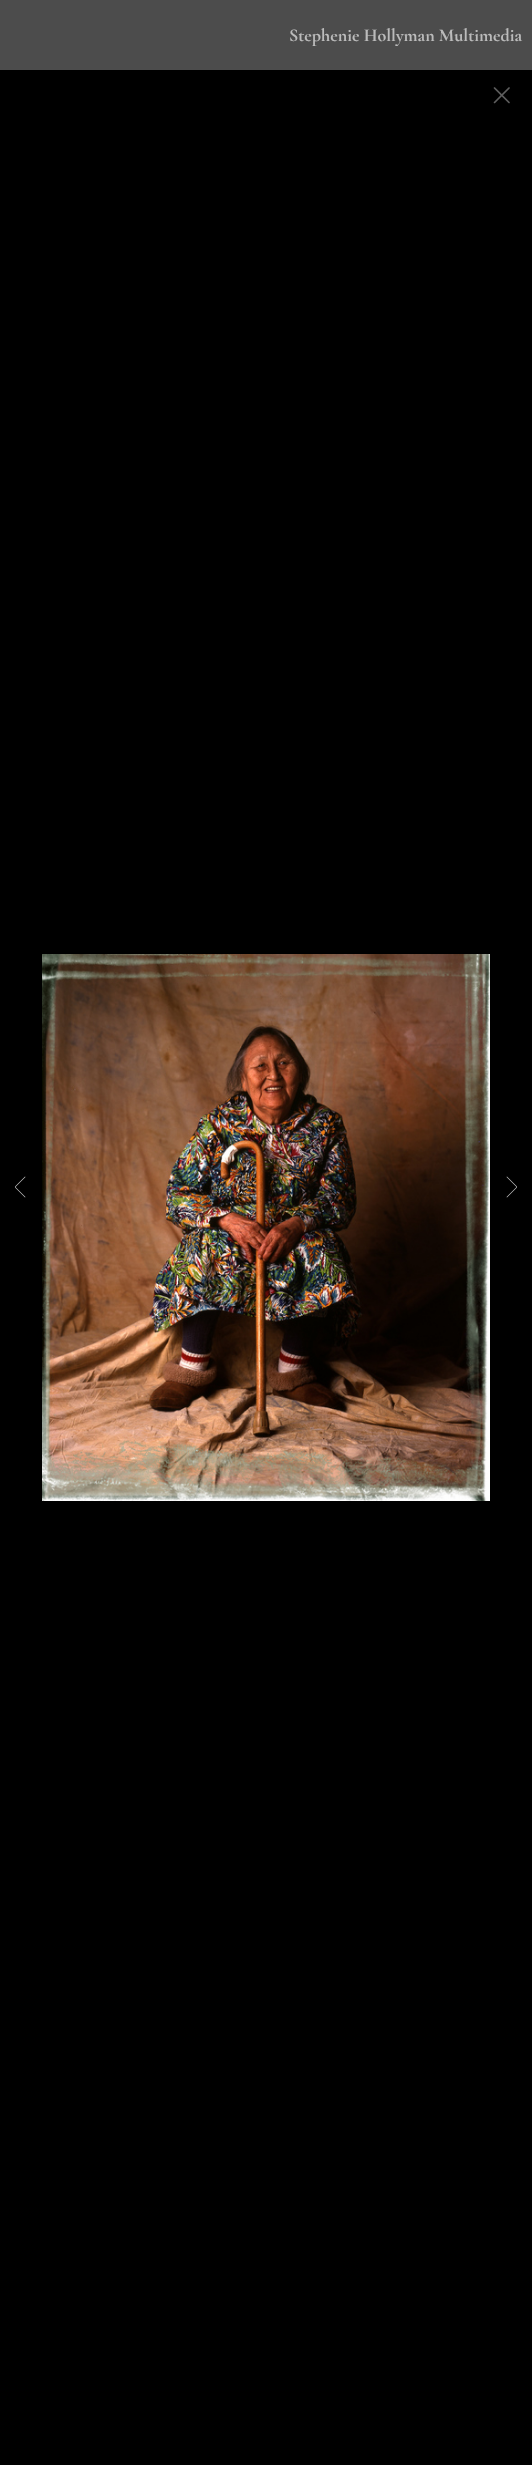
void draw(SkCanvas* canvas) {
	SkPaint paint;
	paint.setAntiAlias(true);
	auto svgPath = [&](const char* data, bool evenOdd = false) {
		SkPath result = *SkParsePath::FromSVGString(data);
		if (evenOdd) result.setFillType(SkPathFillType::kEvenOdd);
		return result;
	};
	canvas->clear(0xff000000);
	paint.setColor(0xff4c4c4c);
	canvas->drawRect(SkRect::MakeXYWH(0, 0, 532, 70), paint);
	SkFont f1(fontMgr->matchFamilyStyle("Cormorant Garamond", SkFontStyle::Bold()), 18);
	f1.setSubpixel(true);
	paint.setColor(0xffbbbbbb);
	canvas->drawString("Stephenie Hollyman Multimedia", 289, 41, f1, paint);
	canvas->drawImageRect(SkImages::DeferredFromEncodedData(SkData::MakeFromFileName("img1.png")), SkRect::MakeXYWH(493, 87, 17, 17), SkSamplingOptions());
	canvas->drawImageRect(SkImages::DeferredFromEncodedData(SkData::MakeFromFileName("img2.png")), SkRect::MakeXYWH(42, 954, 448, 547), SkSamplingOptions());
	canvas->drawPath(svgPath("M15 1186.5V1187.5L25 1197.5L25.5 1197L15.5 1187L25.5 1177L25 1176.5Z"), paint);
	canvas->drawPath(svgPath("M517 1186.5V1187.5L507 1197.5L506.5 1197L516.5 1187L506.5 1177L507 1176.5Z"), paint);
}
